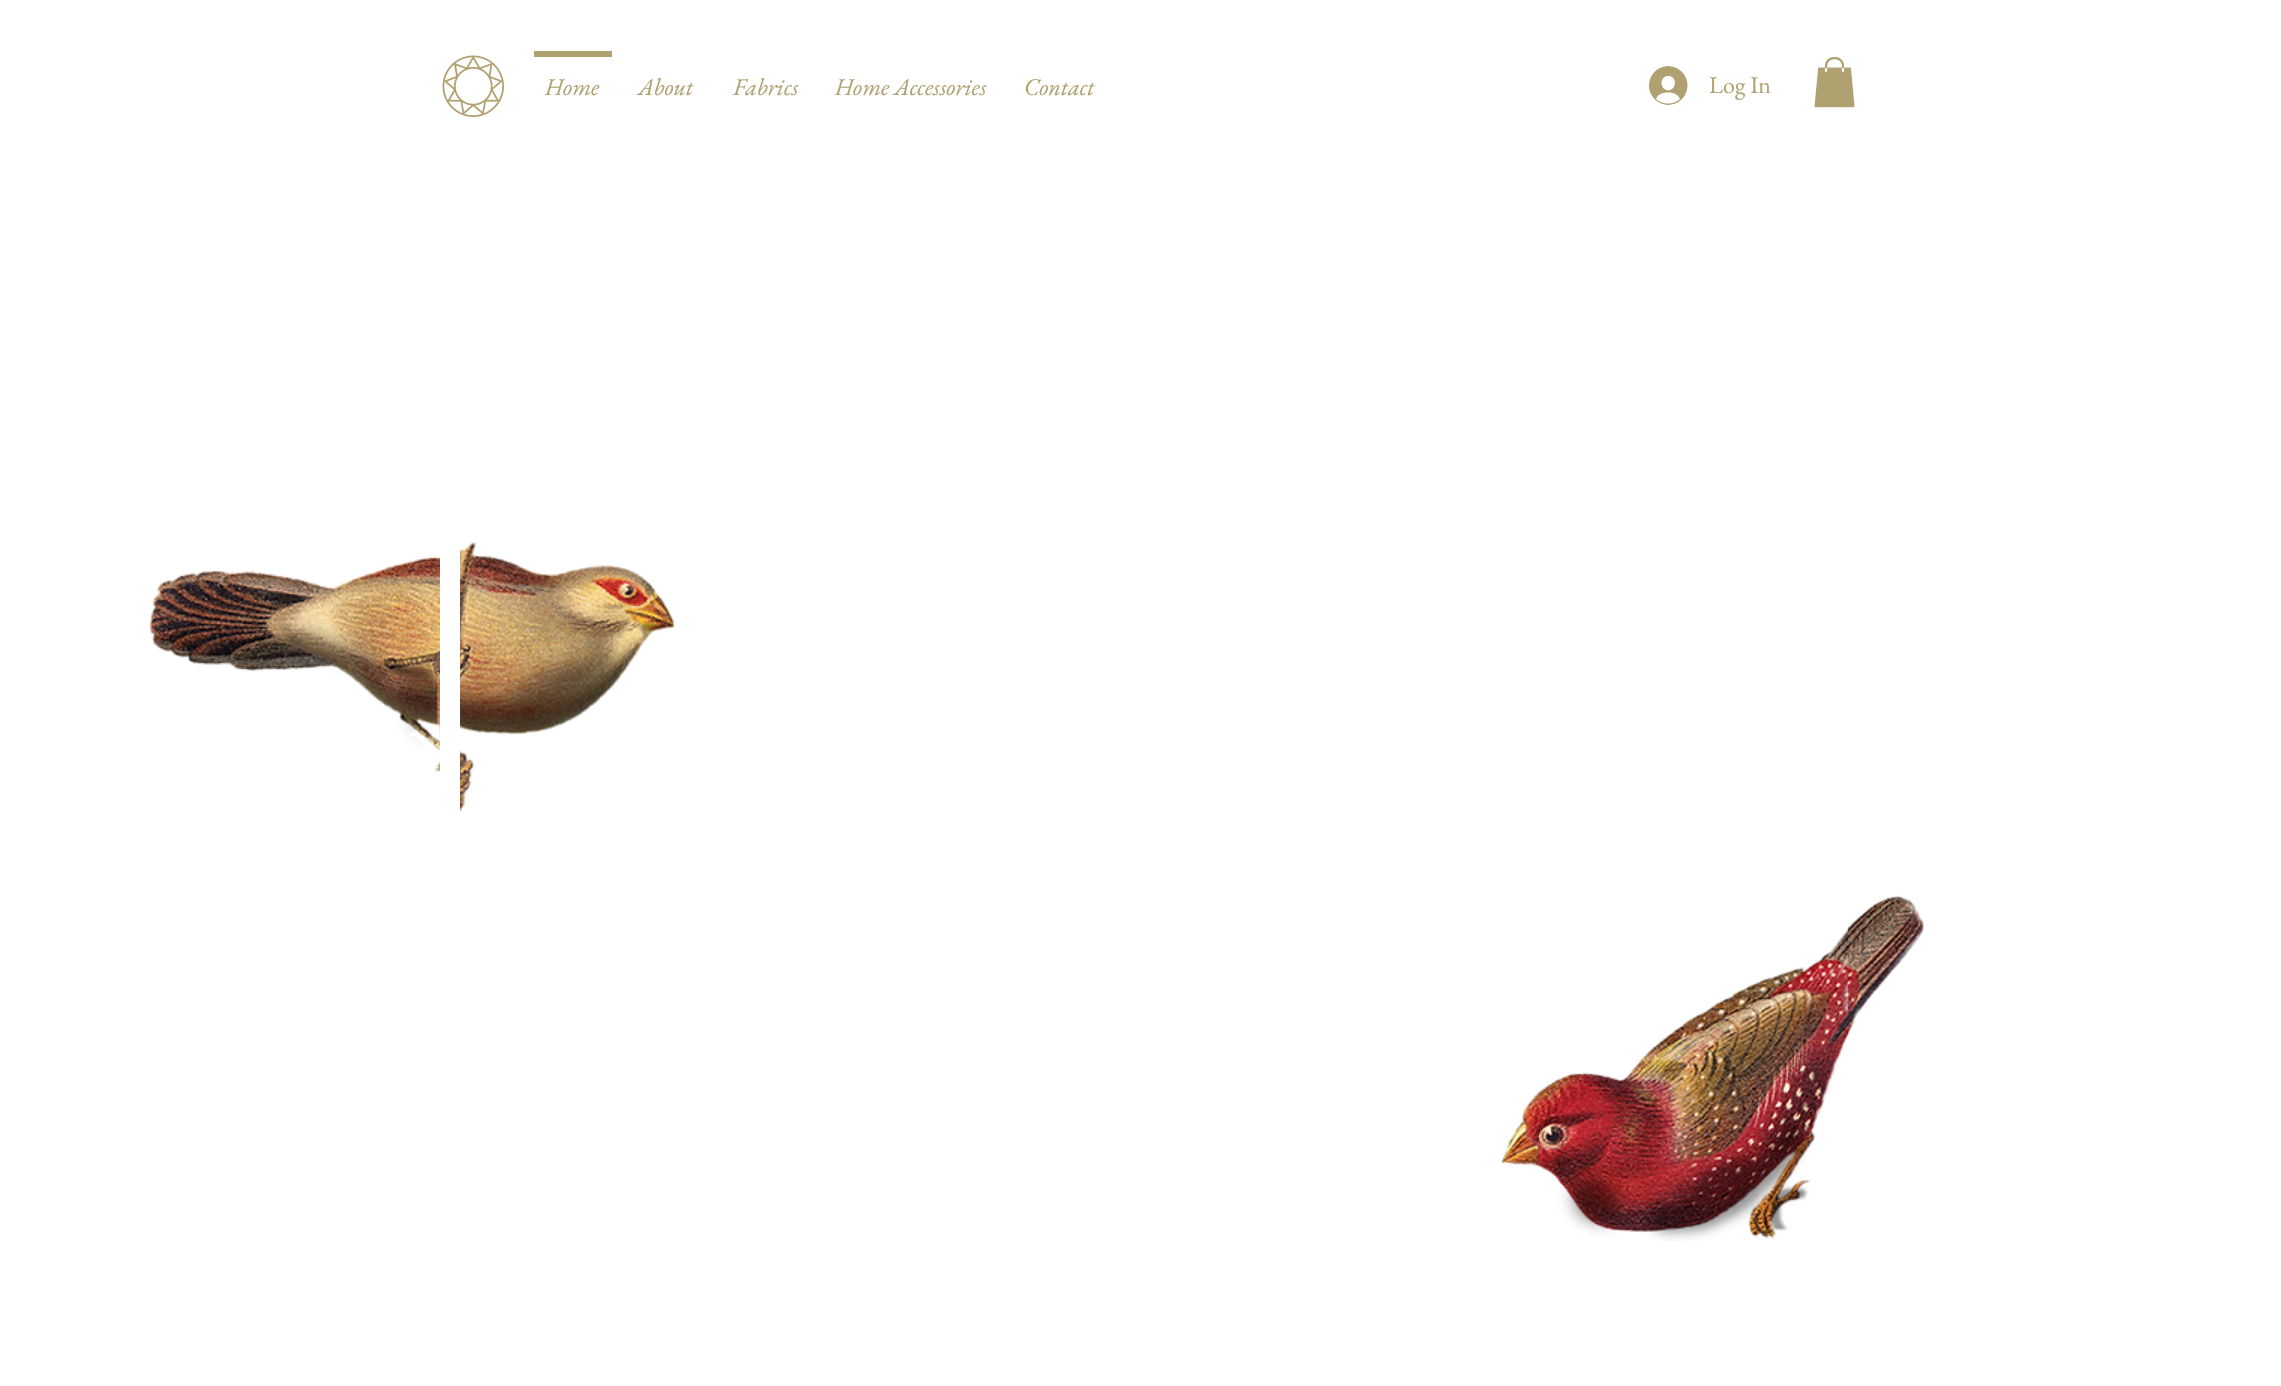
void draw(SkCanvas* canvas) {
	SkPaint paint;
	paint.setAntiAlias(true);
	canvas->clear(0xffffffff);
	canvas->drawImageRect(SkImages::DeferredFromEncodedData(SkData::MakeFromFileName("img1.png")), SkRect::MakeXYWH(442, 55, 62, 62), SkSamplingOptions());
	paint.setColor(0xffb0a171);
	canvas->drawRect(SkRect::MakeXYWH(534, 51, 78, 6), paint);
	SkFont f1(fontMgr->matchFamilyStyle("EB Garamond", SkFontStyle::Italic()), 24);
	f1.setSubpixel(true);
	canvas->drawString("Home", 545, 95, f1, paint);
	canvas->drawString("About", 638, 95, f1, paint);
	canvas->drawString("Fabrics", 733, 95, f1, paint);
	canvas->drawString("Home Accessories", 835, 95, f1, paint);
	canvas->drawString("Contact", 1024, 95, f1, paint);
	canvas->drawImageRect(SkImages::DeferredFromEncodedData(SkData::MakeFromFileName("img2.png")), SkRect::MakeXYWH(1649, 66, 39, 39), SkSamplingOptions());
	SkFont f2(fontMgr->matchFamilyStyle("EB Garamond", SkFontStyle::Normal()), 24);
	f2.setSubpixel(true);
	canvas->drawString("Log In", 1709, 93, f2, paint);
	canvas->drawImageRect(SkImages::DeferredFromEncodedData(SkData::MakeFromFileName("img3.png")), SkRect::MakeXYWH(1814, 57, 41, 51), SkSamplingOptions());
	canvas->drawImageRect(SkImages::DeferredFromEncodedData(SkData::MakeFromFileName("img4.png")), SkRect::MakeXYWH(149, 541, 527, 272), SkSamplingOptions());
	paint.setStroke(true);
	paint.setStrokeWidth(20);
	paint.setColor(0xffffffff);
	canvas->drawRect(SkRect::MakeXYWH(450, 297, 1390, 913), paint);
	canvas->drawImageRect(SkImages::DeferredFromEncodedData(SkData::MakeFromFileName("img5.png")), SkRect::MakeXYWH(1501, 895, 424, 346), SkSamplingOptions());
}
